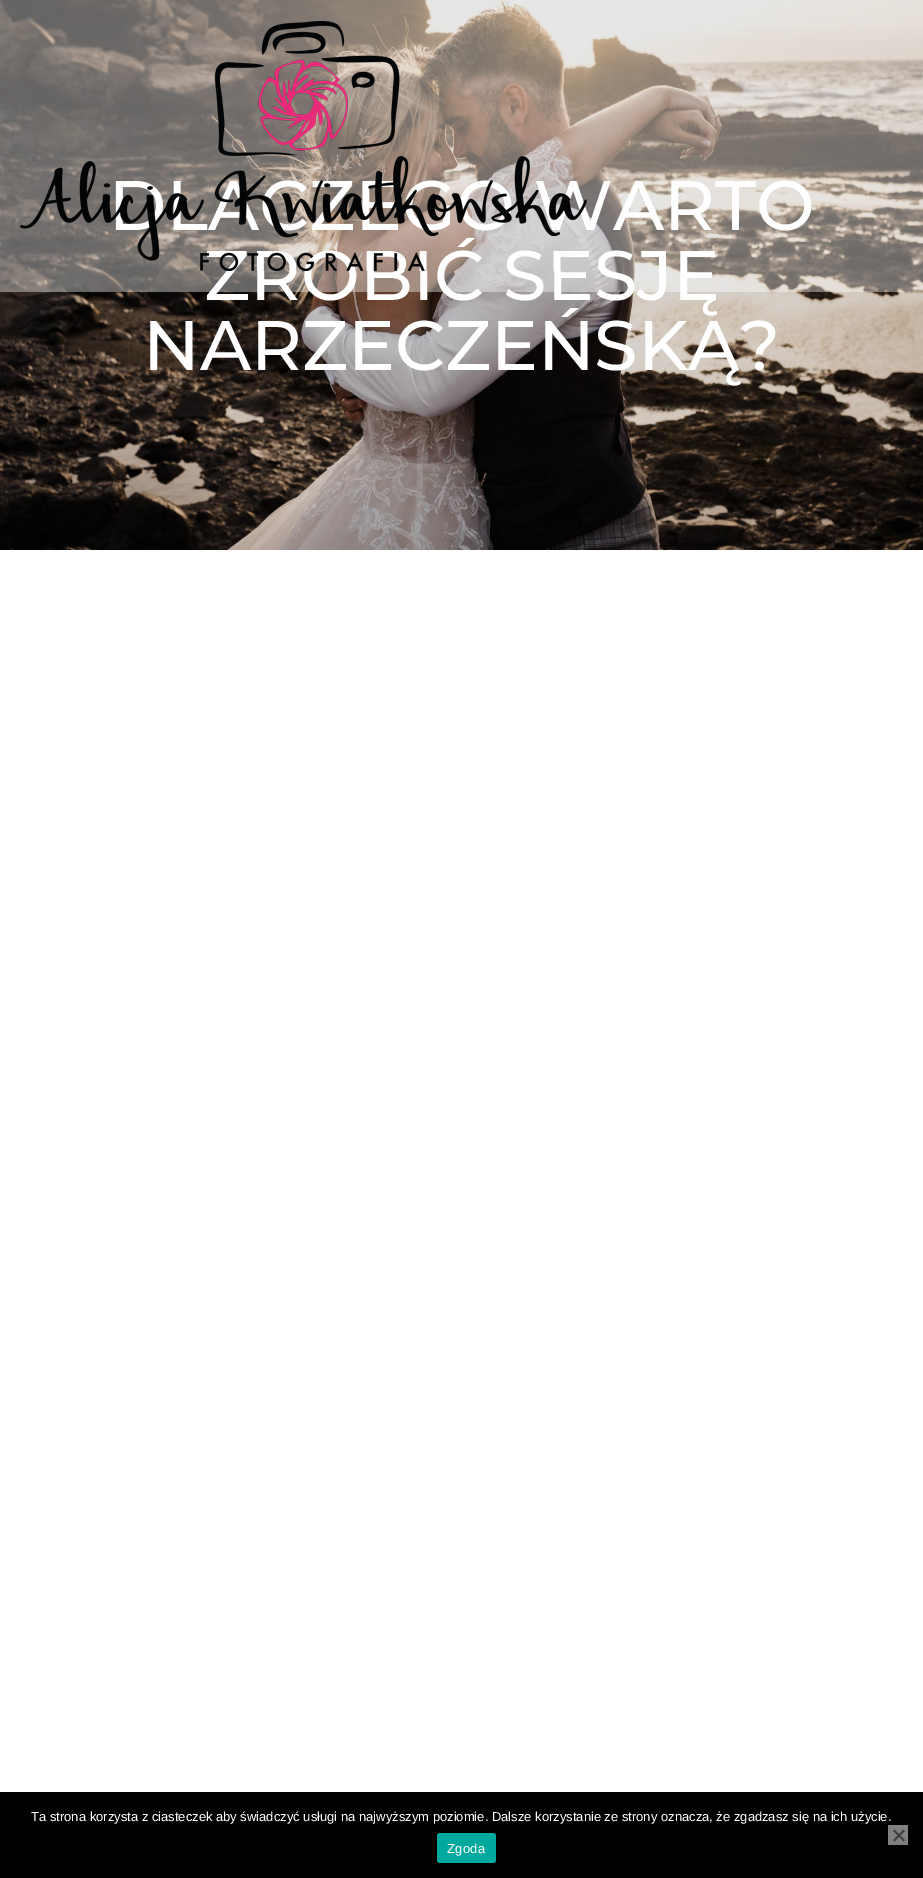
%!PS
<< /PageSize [923 1878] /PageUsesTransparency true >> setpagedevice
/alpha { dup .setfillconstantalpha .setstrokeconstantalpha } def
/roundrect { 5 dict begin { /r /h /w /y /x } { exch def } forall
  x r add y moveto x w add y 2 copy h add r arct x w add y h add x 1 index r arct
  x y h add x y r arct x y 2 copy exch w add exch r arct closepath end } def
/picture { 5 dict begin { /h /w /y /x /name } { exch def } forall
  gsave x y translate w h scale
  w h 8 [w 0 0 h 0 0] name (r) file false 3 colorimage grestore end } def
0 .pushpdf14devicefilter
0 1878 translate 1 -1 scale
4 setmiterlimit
1 setgray
0 0 923 1878 rectfill
(img2.rgb) 0 0 923 550 picture
/Montserrat-Medium [70 0 0 -70 0 0] selectfont
109 230 moveto (DLACZEGO WARTO) show
204 300 moveto (ZROBIĆ SESJĘ) show
0.39 alpha
0 0 923 292 rectfill
1 alpha
(img1.rgb) 20 21 567 250 picture
143 370 moveto (NARZECZEŃSKĄ?) show
0 setgray
0 1792 923 86 rectfill
/LiberationSans-Regular [13 0 0 -13 0 0] selectfont
1 setgray
31 1821 moveto (Ta strona korzysta z ciasteczek aby świadczyć usługi na najwyższym poziomie. Dalsze korzystanie ze strony oznacza, że zgadzasz się na ich użycie.) show
0.502 setgray
888 1825 20 20 rectfill
0.251 setgray
newpath 903.5 1829.5 moveto 905 1831 lineto 894.5 1841.5 lineto 893 1840 lineto closepath fill
newpath 893 1831 moveto 894.5 1829.5 lineto 905 1840 lineto 903.5 1841.5 lineto closepath fill
0 0.663 0.616 setrgbcolor
437 1833 59 30 3 roundrect fill
1 setgray
447 1853 moveto 0.25 0 (Zgoda) ashow
.poppdf14devicefilter showpage
